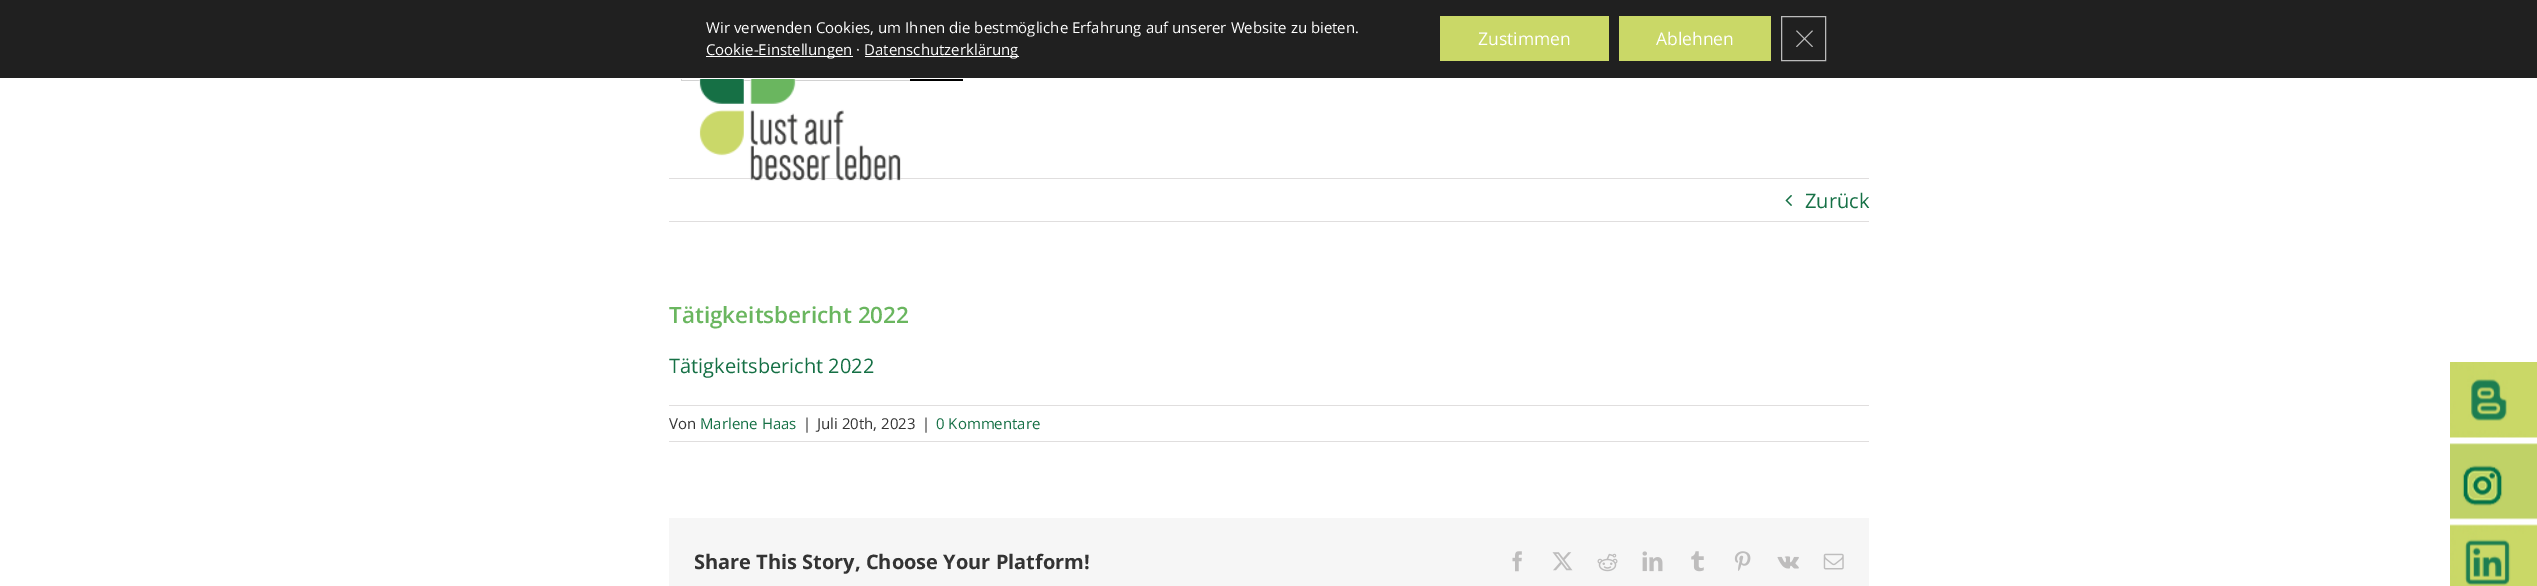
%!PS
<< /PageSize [2537 586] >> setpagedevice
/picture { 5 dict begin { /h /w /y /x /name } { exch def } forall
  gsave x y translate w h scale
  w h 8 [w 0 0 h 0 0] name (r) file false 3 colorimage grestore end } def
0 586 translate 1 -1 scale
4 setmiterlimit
1 setgray
0 0 2537 586 rectfill
0.125 setgray
0 0 2537 78 rectfill
/OpenSans-Regular [15 0 0 -15 0 0] selectfont
1 setgray
706 33 moveto (Wir verwenden Cookies, um Ihnen die bestmögliche Erfahrung auf unserer Website zu bieten.) show
706 56 147 1 rectfill
706 55 moveto (Cookie-Einstellungen ·) show
865 56 154 1 rectfill
864 55 moveto (Datenschutzerklärung) show
0.792 0.847 0.404 setrgbcolor
1440 16 169 45 rectfill
/OpenSans-Regular [17.5 0 0 -17.5 0 0] selectfont
1 setgray
1478 45 moveto (Zustimmen) show
0.792 0.847 0.404 setrgbcolor
1619 16 152 45 rectfill
1 setgray
1656 45 moveto (Ablehnen) show
0.737 setgray
1781.5 16.5 44 44 rectstroke
newpath 1812 30.5 moveto 1813 31 lineto 1797 47 lineto 1796 46.5 lineto closepath fill
newpath 1796 31 moveto 1797 30.5 lineto 1813 46.5 lineto 1812 47 lineto closepath fill
(img1.rgb) 2450 362 87 76 picture
(img2.rgb) 2450 443 87 77 picture
(img3.rgb) 2450 524 87 62 picture
0.824 setgray
681 80 229 1 rectfill
681 79 1 2 rectfill
0 setgray
910 79 53 2 rectfill
0.878 0.871 0.871 setrgbcolor
669 178 1200 1 rectfill
(img4.rgb) 698 79 203 102 picture
669 221 1200 1 rectfill
(img5.rgb) 1785 195 7 11 picture
/OpenSans-Regular [20 0 0 -20 0 0] selectfont
0.082 0.439 0.271 setrgbcolor
1805 208 moveto (Zurück) show
/OpenSans-SemiBold [22.5 0 0 -22.5 0 0] selectfont
0.416 0.714 0.373 setrgbcolor
669 323 moveto (Tätigkeitsbericht 2022) show
/OpenSans-Regular [20 0 0 -20 0 0] selectfont
0.082 0.439 0.271 setrgbcolor
669 373 moveto (Tätigkeitsbericht 2022) show
0.878 0.871 0.871 setrgbcolor
669 405 1200 1 rectfill
669 441 1200 1 rectfill
/OpenSans-Regular [15 0 0 -15 0 0] selectfont
0.2 setgray
669 429 moveto (Von) show
0.082 0.439 0.271 setrgbcolor
700 429 moveto (Marlene Haas) show
0.2 setgray
803 429 moveto (|) show
817 429 moveto (Juli 20th, 2023) show
922 429 moveto (|) show
0.082 0.439 0.271 setrgbcolor
936 429 moveto (0 Kommentare) show
0.965 setgray
669 518 1200 68 rectfill
/OpenSans-Bold [20 0 0 -20 0 0] selectfont
0.2 setgray
694 569 moveto (Share This Story, Choose Your Platform!) show
(img6.rgb) 1512 551 10 21 picture
(img7.rgb) 1552 552 21 19 picture
(img8.rgb) 1597 553 21 19 picture
(img9.rgb) 1642 551 21 21 picture
(img10.rgb) 1691 551 13 21 picture
(img11.rgb) 1734 551 17 20 picture
(img12.rgb) 1777 556 22 13 picture
(img13.rgb) 1823 553 21 17 picture
showpage
